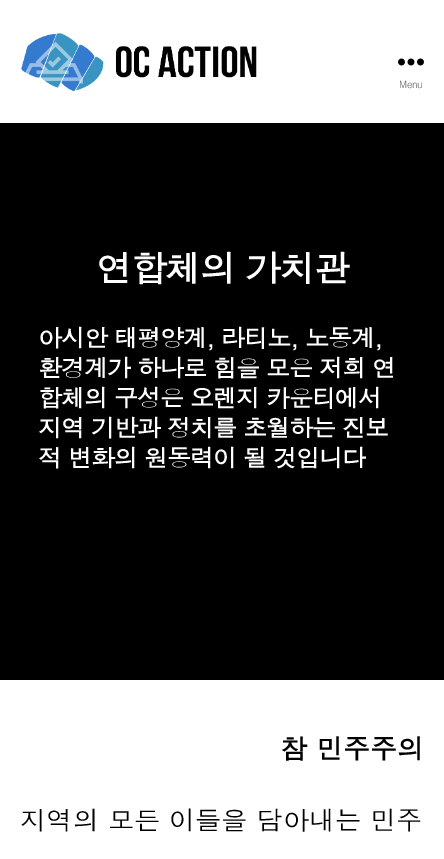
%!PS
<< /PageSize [444 859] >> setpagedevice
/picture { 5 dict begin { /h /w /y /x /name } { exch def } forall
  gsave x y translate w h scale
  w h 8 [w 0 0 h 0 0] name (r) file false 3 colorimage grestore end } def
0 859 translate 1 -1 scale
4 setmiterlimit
1 setgray
0 0 444 859 rectfill
(img1.rgb) 21 33 236 58 picture
(img2.rgb) 398 58 26 8 picture
/Dotum-Regular [10 0 0 -10 0 0] selectfont
0.427 setgray
399 88 moveto -0.5 0 (Menu) ashow
0 setgray
0 123 444 557 rectfill
/Dotum-Bold [36 0 0 -36 0 0] selectfont
1 setgray
96 282 moveto -1.5 0 (연합체의 가치관) ashow
/Dotum-Bold [24 0 0 -24 0 0] selectfont
38 347 moveto -1 0 (아시안 태평양계, 라티노, 노동계,) ashow
38 377 moveto -1 0 (환경계가 하나로 힘을 모은 저희 연) ashow
38 407 moveto -1 0 (합체의 구성은 오렌지 카운티에서) ashow
38 437 moveto -1 0 (지역 기반과 정치를 초월하는 진보) ashow
38 467 moveto -1 0 (적 변화의 원동력이 될 것입니다) ashow
/Dotum-Bold [27 0 0 -27 0 0] selectfont
0 setgray
280 759 moveto (참 민주주의) show
/Dotum-Regular [26.25 0 0 -26.25 0 0] selectfont
20 830 moveto (지역의 모든 이들을 담아내는 민주) show
showpage
